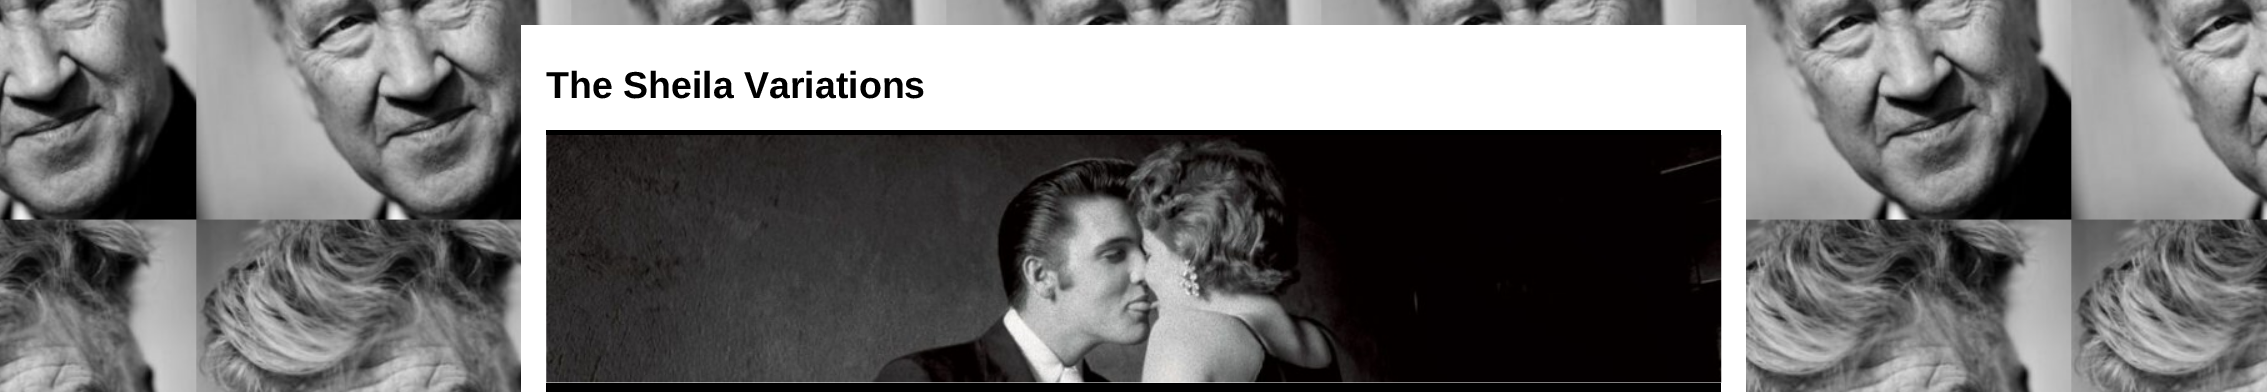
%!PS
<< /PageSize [2267 392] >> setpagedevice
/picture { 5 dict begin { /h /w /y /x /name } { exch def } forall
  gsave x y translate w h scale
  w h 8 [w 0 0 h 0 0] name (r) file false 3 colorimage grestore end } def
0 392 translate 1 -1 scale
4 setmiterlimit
1 setgray
0 0 2267 392 rectfill
(img1.rgb) 0 0 2267 392 picture
521 25 1225 367 rectfill
/LiberationSans-Bold [37.5 0 0 -37.5 0 0] selectfont
0 setgray
546 98 moveto (The Sheila Variations) show
546 130 1175 5 rectfill
546 383 1175 9 rectfill
(img2.rgb) 546 135 1176 248 picture
showpage
